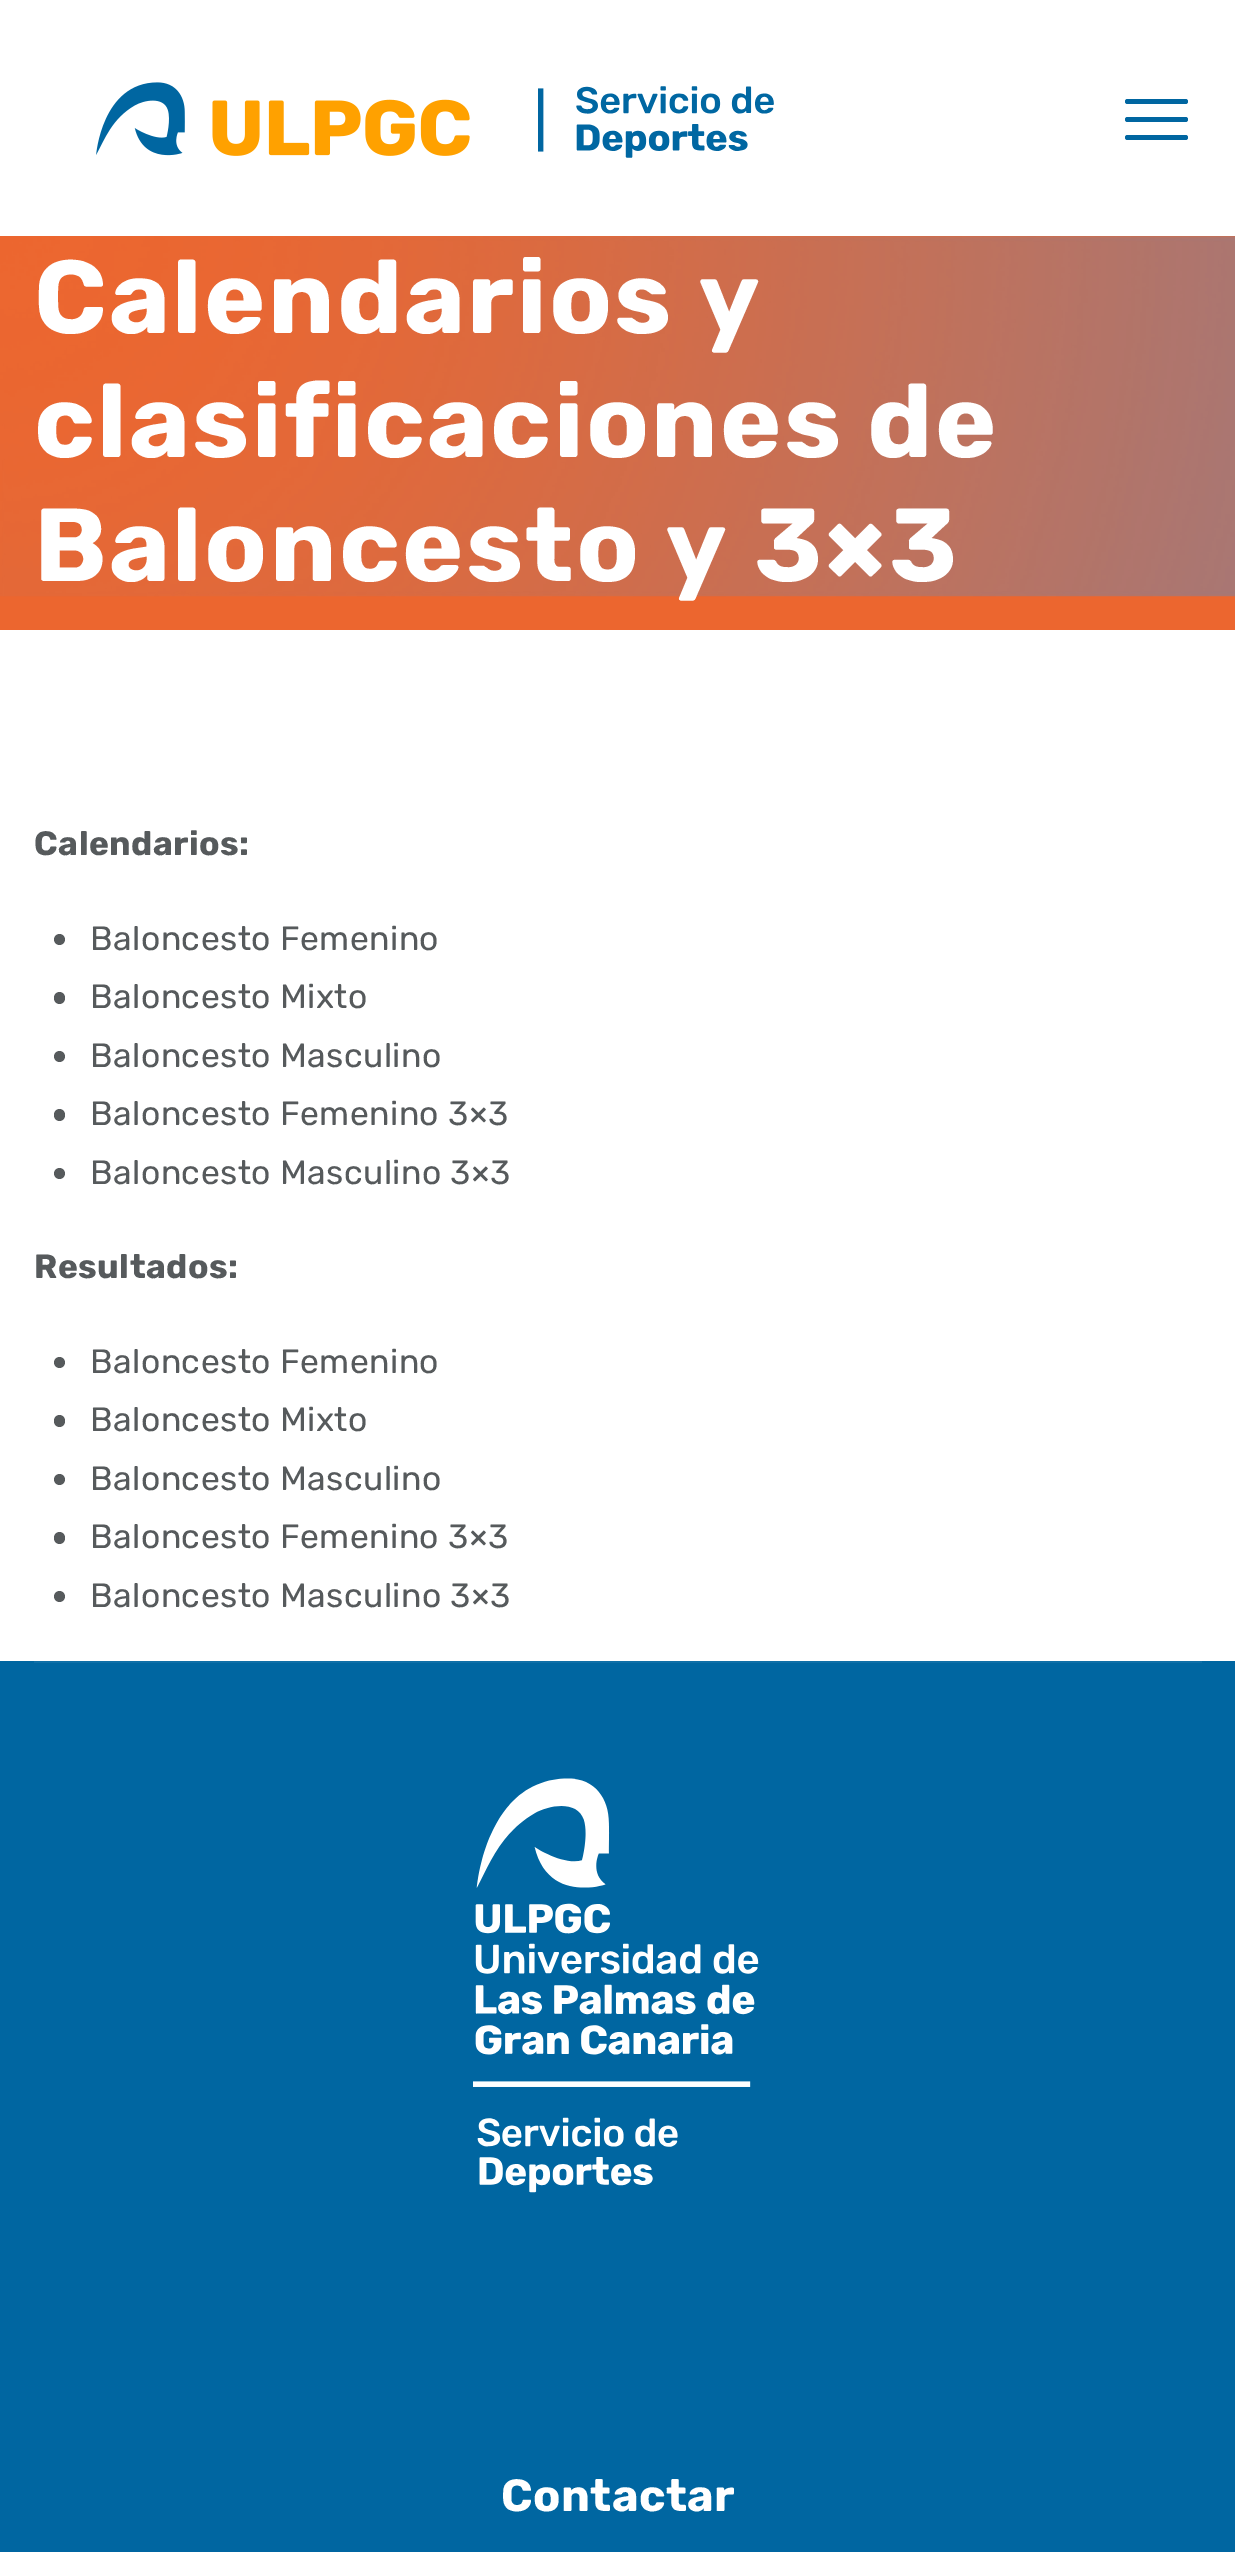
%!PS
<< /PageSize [1235 2552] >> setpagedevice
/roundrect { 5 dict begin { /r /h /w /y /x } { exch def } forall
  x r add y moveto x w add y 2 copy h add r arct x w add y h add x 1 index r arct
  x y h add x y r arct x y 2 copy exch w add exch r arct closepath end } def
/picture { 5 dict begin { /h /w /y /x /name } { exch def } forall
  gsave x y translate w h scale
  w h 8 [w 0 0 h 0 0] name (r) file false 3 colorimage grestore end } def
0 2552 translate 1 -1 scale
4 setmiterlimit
1 setgray
0 0 1235 2552 rectfill
(img1.rgb) 96 82 374 74 picture
(img2.rgb) 538 86 236 72 picture
0 0.4 0.631 setrgbcolor
1125 117 63 5 2.5 roundrect fill
1125 99 63 5 2.5 roundrect fill
1125 135 63 5 2.5 roundrect fill
0.925 0.4 0.184 setrgbcolor
0 236 1235 394 rectfill
(img3.rgb) 0 236 1235 361 picture
/Rubik-Bold [103.5 0 0 -103.5 0 0] selectfont
1 setgray
34 333 moveto 2.25 0 (Calendarios y) ashow
34 457 moveto 2.25 0 (clasificaciones de) ashow
34 581 moveto 2.25 0 (Baloncesto y 3×3) ashow
/Rubik-Bold [33.75 0 0 -33.75 0 0] selectfont
0.337 0.353 0.361 setrgbcolor
34 855 moveto 0.45 0 (Calendarios:) ashow
newpath 59.5 939.5 5.5 0 360 arc closepath fill
/Rubik-Regular [33.75 0 0 -33.75 0 0] selectfont
90 950 moveto 0.45 0 (Baloncesto Femenino) ashow
54 992 11 12 5.5 roundrect fill
90 1008 moveto 0.45 0 (Baloncesto Mixto) ashow
newpath 59.5 1056.5 5.5 0 360 arc closepath fill
90 1067 moveto 0.45 0 (Baloncesto Masculino) ashow
54 1109 11 12 5.5 roundrect fill
90 1125 moveto 0.45 0 (Baloncesto Femenino 3×3) ashow
newpath 59.5 1173.5 5.5 0 360 arc closepath fill
90 1184 moveto 0.45 0 (Baloncesto Masculino 3×3) ashow
/Rubik-Bold [33.75 0 0 -33.75 0 0] selectfont
34 1278 moveto 0.45 0 (Resultados:) ashow
newpath 59.5 1362.5 5.5 0 360 arc closepath fill
/Rubik-Regular [33.75 0 0 -33.75 0 0] selectfont
90 1373 moveto 0.45 0 (Baloncesto Femenino) ashow
54 1415 11 12 5.5 roundrect fill
90 1431 moveto 0.45 0 (Baloncesto Mixto) ashow
newpath 59.5 1479.5 5.5 0 360 arc closepath fill
90 1490 moveto 0.45 0 (Baloncesto Masculino) ashow
54 1532 11 12 5.5 roundrect fill
90 1548 moveto 0.45 0 (Baloncesto Femenino 3×3) ashow
newpath 59.5 1596.5 5.5 0 360 arc closepath fill
90 1607 moveto 0.45 0 (Baloncesto Masculino 3×3) ashow
0 0.4 0.631 setrgbcolor
0 1661 1235 891 rectfill
0.059 0.435 0.655 setrgbcolor
34 1661 1168 2 rectfill
(img4.rgb) 473 1778 286 415 picture
/Rubik-Bold [45 0 0 -45 0 0] selectfont
1 setgray
501 2511 moveto 0.45 0 (Contactar) ashow
showpage
